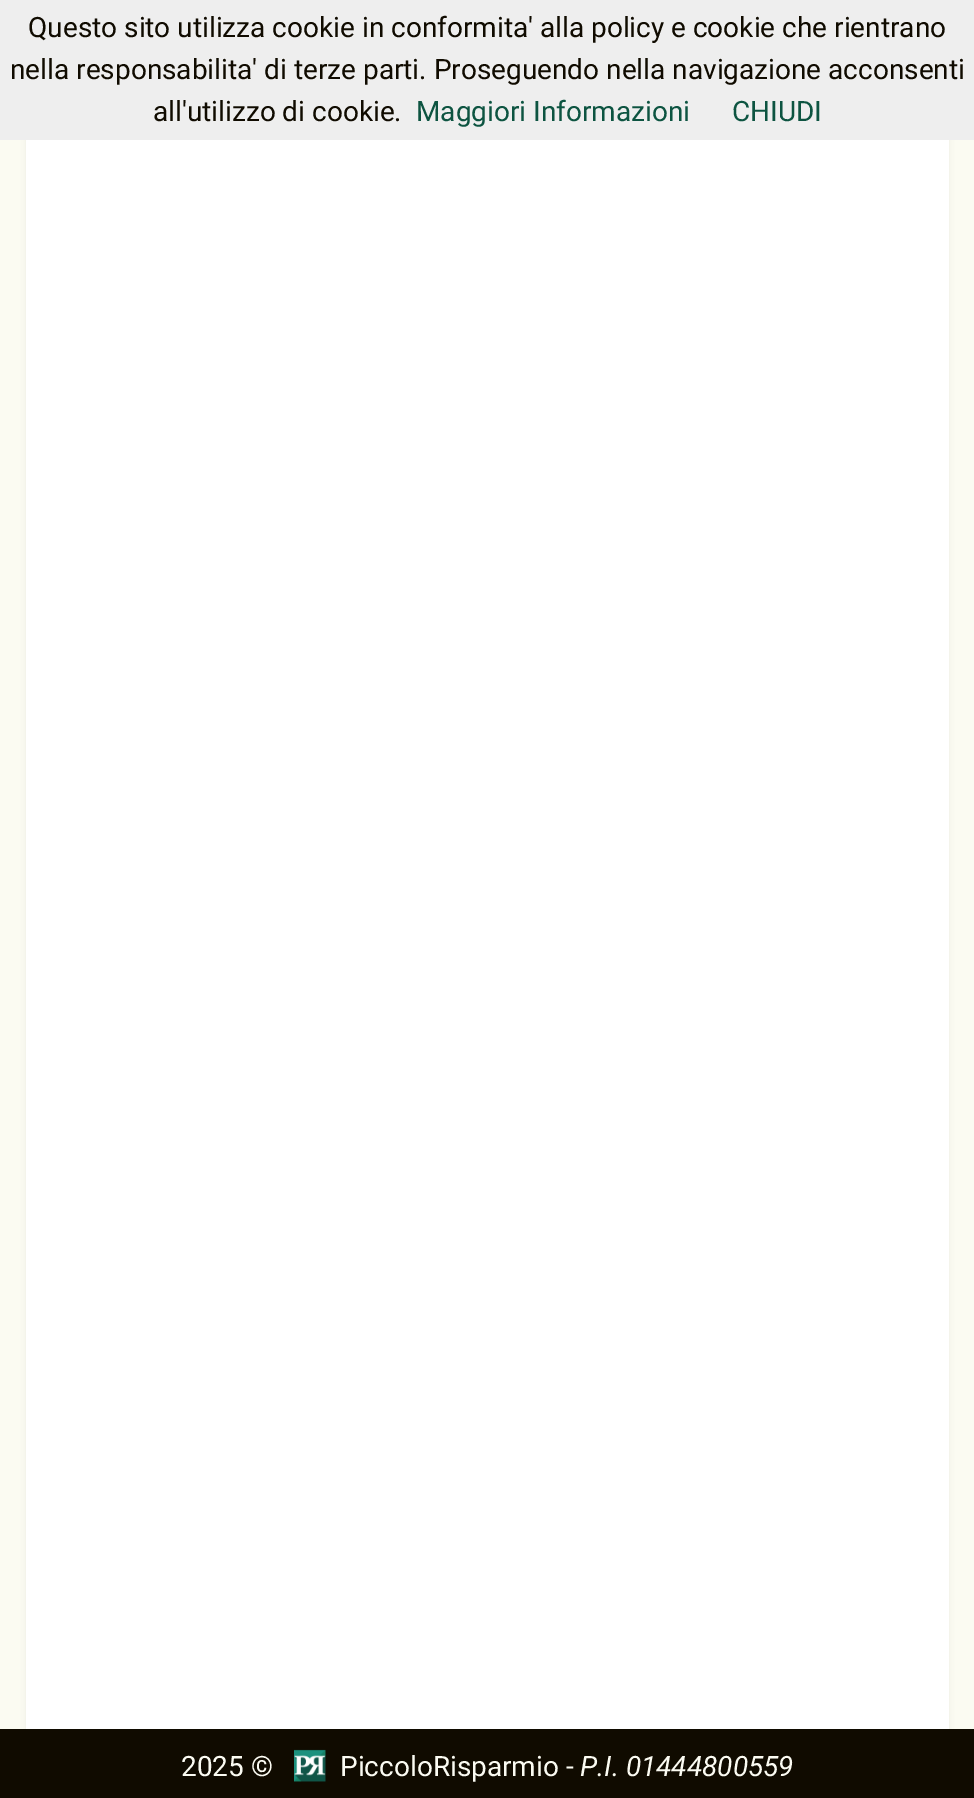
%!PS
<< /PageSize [974 1798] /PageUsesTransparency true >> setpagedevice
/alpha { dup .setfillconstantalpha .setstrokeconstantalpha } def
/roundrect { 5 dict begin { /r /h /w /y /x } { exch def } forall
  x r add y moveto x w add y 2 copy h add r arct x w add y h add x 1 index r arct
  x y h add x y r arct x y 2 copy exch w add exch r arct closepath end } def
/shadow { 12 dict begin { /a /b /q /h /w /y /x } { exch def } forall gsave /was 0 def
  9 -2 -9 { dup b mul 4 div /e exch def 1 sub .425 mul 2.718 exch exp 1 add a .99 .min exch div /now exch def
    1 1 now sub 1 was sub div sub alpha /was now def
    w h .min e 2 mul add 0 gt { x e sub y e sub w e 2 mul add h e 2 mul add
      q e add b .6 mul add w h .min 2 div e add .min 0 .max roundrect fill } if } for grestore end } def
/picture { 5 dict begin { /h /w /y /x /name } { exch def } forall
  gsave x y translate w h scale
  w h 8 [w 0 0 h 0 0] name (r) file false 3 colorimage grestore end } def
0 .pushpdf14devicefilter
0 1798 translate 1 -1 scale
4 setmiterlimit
0.984 0.984 0.949 setrgbcolor
0 0 974 1798 rectfill
0.063 0.043 0 setrgbcolor
26 -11 923 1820 0 3.5 0.05 shadow
1 setgray
26 140 923 1589 rectfill
0.933 setgray
0 0 974 140 rectfill
/Roboto-Regular [28 0 0 -28 0 0] selectfont
0.063 0.043 0 setrgbcolor
28 37 moveto (Questo sito utilizza cookie in conformita' alla policy e cookie che rientrano) show
10 79 moveto (nella responsabilita' di terze parti. Proseguendo nella navigazione acconsenti) show
153 121 moveto (all'utilizzo di cookie.) show
0.051 0.329 0.255 setrgbcolor
416 121 moveto (Maggiori Informazioni) show
732 121 moveto (CHIUDI) show
0.063 0.043 0 setrgbcolor
0 1729 974 69 rectfill
0.984 0.984 0.949 setrgbcolor
181 1776 moveto (2025 ©) show
(img1.rgb) 294 1749 32 33 picture
340 1776 moveto (PiccoloRisparmio -) show
/Roboto-Italic [28 0 0 -28 0 0] selectfont
580 1776 moveto (P.I. 01444800559) show
.poppdf14devicefilter showpage
